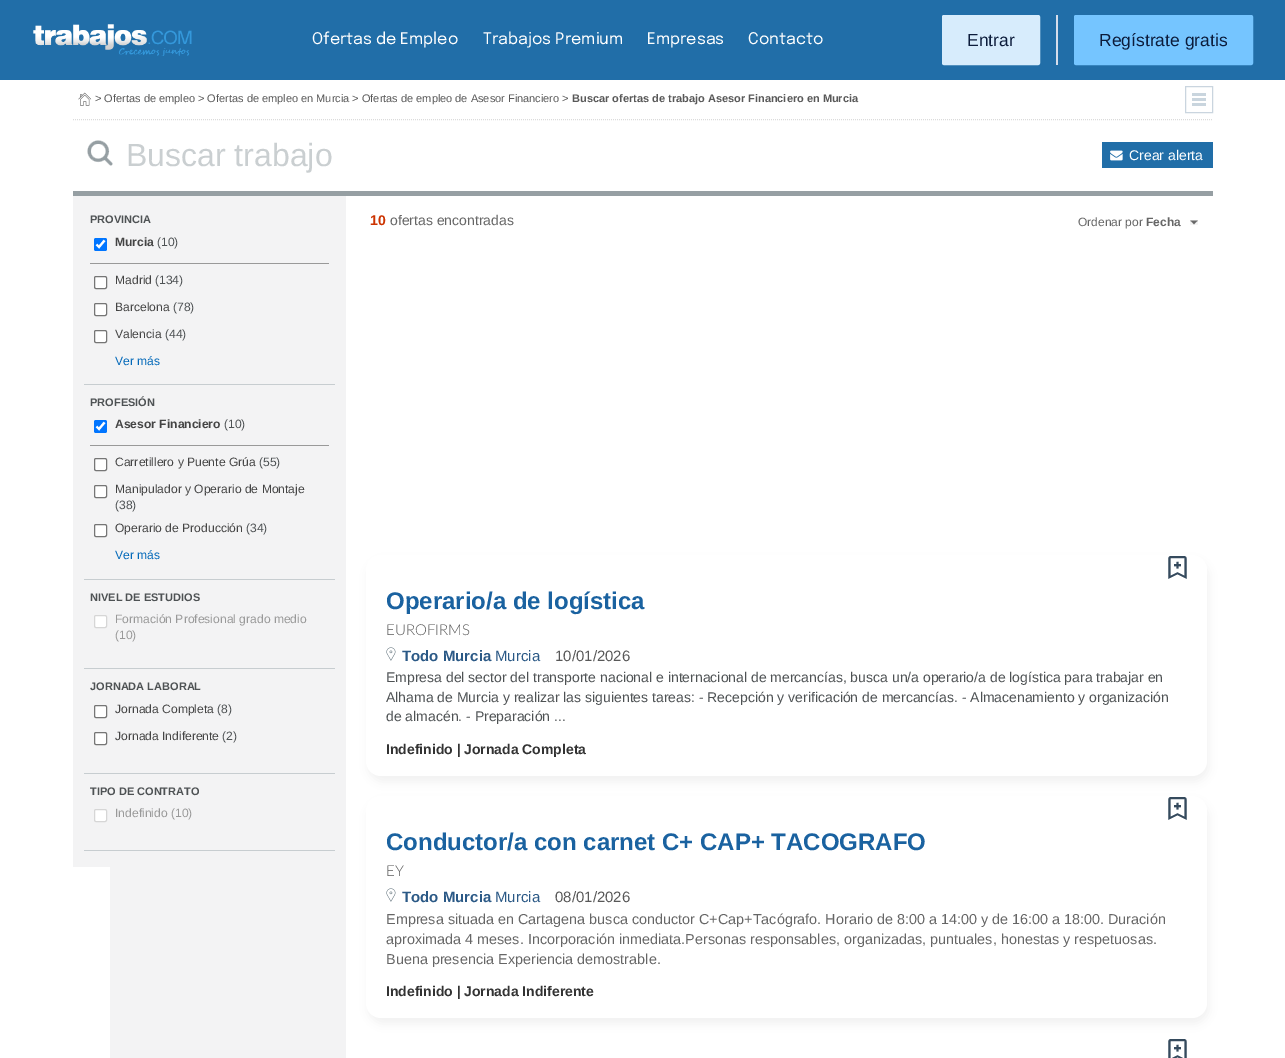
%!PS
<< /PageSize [1285 1058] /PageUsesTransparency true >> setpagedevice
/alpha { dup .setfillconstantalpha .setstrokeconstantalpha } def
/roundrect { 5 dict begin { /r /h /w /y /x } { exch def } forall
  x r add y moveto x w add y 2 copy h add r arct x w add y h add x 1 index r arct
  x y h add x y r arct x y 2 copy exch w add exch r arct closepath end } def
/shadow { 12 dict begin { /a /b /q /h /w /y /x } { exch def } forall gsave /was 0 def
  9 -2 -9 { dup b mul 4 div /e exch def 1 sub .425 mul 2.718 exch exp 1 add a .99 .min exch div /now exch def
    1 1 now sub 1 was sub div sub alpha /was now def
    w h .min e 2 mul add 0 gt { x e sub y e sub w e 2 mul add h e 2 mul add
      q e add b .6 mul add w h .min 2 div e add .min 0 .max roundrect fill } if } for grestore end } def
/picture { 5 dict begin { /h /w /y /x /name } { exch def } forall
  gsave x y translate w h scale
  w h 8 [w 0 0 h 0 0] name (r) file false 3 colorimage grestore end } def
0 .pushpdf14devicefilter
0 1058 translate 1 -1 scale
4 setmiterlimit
1 setgray
0 0 1285 1058 rectfill
0.129 0.431 0.659 setrgbcolor
0 0 1285 80 rectfill
(img1.rgb) 33 24 159 32 picture
/Epilogue-Regular [16 0 0 -16 0 0] selectfont
1 setgray
312 44 moveto (Ofertas de Empleo) show
483 44 moveto (Trabajos Premium) show
647 44 moveto (Empresas) show
748 44 moveto (Contacto) show
0.843 0.925 0.988 setrgbcolor
942.5 15.5 97 49 1.5 roundrect gsave fill grestore
stroke
/LiberationSans-Regular [17.5 0 0 -17.5 0 0] selectfont
0.047 0.11 0.231 setrgbcolor
967 46 moveto (Entrar) show
0.839 0.867 0.922 setrgbcolor
1056 15 2 50 rectfill
0.459 0.773 1 setrgbcolor
1074.5 15.5 178 49 1.5 roundrect gsave fill grestore
stroke
0.047 0.11 0.231 setrgbcolor
1099 46 moveto (Regístrate gratis) show
0.859 setgray
[1 1] 0 setdash
newpath 73 119.5 moveto 1213 119.5 lineto stroke
(img2.rgb) 78 92 14 14 picture
/LiberationSans-Regular [11 0 0 -11 0 0] selectfont
0.345 setgray
95 102 moveto (> Ofertas de empleo > Ofertas de empleo en Murcia > Ofertas de empleo de Asesor Financiero >) show
/LiberationSans-Bold [11 0 0 -11 0 0] selectfont
572 102 moveto (Buscar ofertas de trabajo Asesor Financiero en Murcia) show
0.792 0.835 0.875 setrgbcolor
[] 0 setdash
1185.5 86.5 27 26 rectstroke
(img3.rgb) 1192 93 14 13 picture
0.588 0.624 0.639 setrgbcolor
73 191 1140 5 rectfill
(img4.rgb) 87 140 26 26 picture
/LiberationSans-Regular [32 0 0 -32 0 0] selectfont
0.792 0.812 0.82 setrgbcolor
126 166 moveto (Buscar trabajo) show
0.129 0.431 0.659 setrgbcolor
1102 142 111 26 rectfill
(img5.rgb) 1110 150 13 11 picture
/LiberationSans-Regular [14 0 0 -14 0 0] selectfont
1 setgray
1129 160 moveto (Crear alerta) show
0.953 0.953 0.957 setrgbcolor
73 196 273 671 rectfill
0.78 0.804 0.816 setrgbcolor
84 384 251 1 rectfill
/LiberationSans-Bold [11 0 0 -11 0 0] selectfont
0.306 0.322 0.329 setrgbcolor
90 223 moveto (PROVINCIA) show
0.6 setgray
90 263 239 1 rectfill
0 0.459 1 setrgbcolor
94 238 13 13 2 roundrect fill
1 setgray
2.1 setlinewidth
newpath 96.5 244.5 moveto 99 247 lineto 104.5 240.5 lineto stroke
/LiberationSans-Bold [12.1 0 0 -12.1 0 0] selectfont
0.267 setgray
115 246 moveto (Murcia) show
/LiberationSans-Regular [12.1 0 0 -12.1 0 0] selectfont
0.306 0.322 0.329 setrgbcolor
157 246 moveto (\(10\)) show
1 setgray
94.5 276.5 12 12 1.5 roundrect gsave fill grestore
0.463 setgray
1 setlinewidth
stroke
0.267 setgray
115 284 moveto (Madrid) show
0.306 0.322 0.329 setrgbcolor
155 284 moveto (\(134\)) show
1 setgray
94.5 303.5 12 12 1.5 roundrect gsave fill grestore
0.463 setgray
stroke
0.267 setgray
115 311 moveto (Barcelona) show
0.306 0.322 0.329 setrgbcolor
173 311 moveto (\(78\)) show
1 setgray
94.5 330.5 12 12 1.5 roundrect gsave fill grestore
0.463 setgray
stroke
0.267 setgray
115 338 moveto (Valencia) show
0.306 0.322 0.329 setrgbcolor
165 338 moveto (\(44\)) show
0.012 0.412 0.725 setrgbcolor
115 365 moveto (Ver más) show
0.78 0.804 0.816 setrgbcolor
84 579 251 1 rectfill
/LiberationSans-Bold [11 0 0 -11 0 0] selectfont
0.306 0.322 0.329 setrgbcolor
90 406 moveto (PROFESIÓN) show
0.6 setgray
90 445 239 1 rectfill
0 0.459 1 setrgbcolor
94 420 13 13 2 roundrect fill
1 setgray
2.1 setlinewidth
newpath 96.5 426.5 moveto 99 429 lineto 104.5 422.5 lineto stroke
/LiberationSans-Bold [12.1 0 0 -12.1 0 0] selectfont
0.267 setgray
115 428 moveto (Asesor Financiero) show
/LiberationSans-Regular [12.1 0 0 -12.1 0 0] selectfont
0.306 0.322 0.329 setrgbcolor
224 428 moveto (\(10\)) show
1 setgray
94.5 458.5 12 12 1.5 roundrect gsave fill grestore
0.463 setgray
1 setlinewidth
stroke
0.267 setgray
115 466 moveto (Carretillero y Puente Grúa) show
0.306 0.322 0.329 setrgbcolor
259 466 moveto (\(55\)) show
1 setgray
94.5 485.5 12 12 1.5 roundrect gsave fill grestore
0.463 setgray
stroke
0.267 setgray
115 493 moveto (Manipulador y Operario de Montaje) show
0.306 0.322 0.329 setrgbcolor
115 509 moveto (\(38\)) show
1 setgray
94.5 524.5 12 12 1.5 roundrect gsave fill grestore
0.463 setgray
stroke
0.267 setgray
115 532 moveto (Operario de Producción) show
0.306 0.322 0.329 setrgbcolor
246 532 moveto (\(34\)) show
0.012 0.412 0.725 setrgbcolor
115 559 moveto (Ver más) show
0.78 0.804 0.816 setrgbcolor
84 668 251 1 rectfill
/LiberationSans-Bold [11 0 0 -11 0 0] selectfont
0.306 0.322 0.329 setrgbcolor
90 601 moveto (NIVEL DE ESTUDIOS) show
1 setgray
94.5 615.5 12 12 1.5 roundrect gsave fill grestore
0.839 setgray
stroke
/LiberationSans-Regular [12.1 0 0 -12.1 0 0] selectfont
0.6 setgray
115 623 moveto (Formación Profesional grado medio) show
115 639 moveto (\(10\)) show
0.78 0.804 0.816 setrgbcolor
84 773 251 1 rectfill
/LiberationSans-Bold [11 0 0 -11 0 0] selectfont
0.306 0.322 0.329 setrgbcolor
90 690 moveto (JORNADA LABORAL) show
1 setgray
94.5 705.5 12 12 1.5 roundrect gsave fill grestore
0.463 setgray
stroke
/LiberationSans-Regular [12.1 0 0 -12.1 0 0] selectfont
0.267 setgray
115 713 moveto (Jornada Completa) show
0.306 0.322 0.329 setrgbcolor
217 713 moveto (\(8\)) show
1 setgray
94.5 732.5 12 12 1.5 roundrect gsave fill grestore
0.463 setgray
stroke
0.267 setgray
115 740 moveto (Jornada Indiferente) show
0.306 0.322 0.329 setrgbcolor
222 740 moveto (\(2\)) show
0.78 0.804 0.816 setrgbcolor
84 850 251 1 rectfill
/LiberationSans-Bold [11 0 0 -11 0 0] selectfont
0.306 0.322 0.329 setrgbcolor
90 795 moveto (TIPO DE CONTRATO) show
1 setgray
94.5 809.5 12 12 1.5 roundrect gsave fill grestore
0.839 setgray
stroke
/LiberationSans-Regular [12.1 0 0 -12.1 0 0] selectfont
0.6 setgray
115 817 moveto (Indefinido \(10\)) show
/LiberationSans-Bold [14 0 0 -14 0 0] selectfont
0.8 0.2 0 setrgbcolor
370 225 moveto (10) show
/LiberationSans-Regular [14 0 0 -14 0 0] selectfont
0.4 setgray
390 225 moveto (ofertas encontradas) show
(img6.rgb) 1190 220 8 5 picture
/LiberationSans-Regular [12 0 0 -12 0 0] selectfont
1078 226 moveto (Ordenar por) show
/LiberationSans-Bold [12 0 0 -12 0 0] selectfont
1146 226 moveto (Fecha) show
0.953 0.953 0.957 setrgbcolor
110 867 236 191 rectfill
0 setgray
368 561 841 221 15 5 0.05 shadow
1 setgray
366 555 841 221 15 roundrect fill
(img7.rgb) 1168 556 19 23 picture
/LiberationSans-Bold [24 0 0 -24 0 0] selectfont
0.102 0.384 0.627 setrgbcolor
386 609 moveto (Operario/a de logística) show
/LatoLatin-Light [15 0 0 -15 0 0] selectfont
0.345 setgray
386 635 moveto (EUROFIRMS) show
(img8.rgb) 386 647 10 14 picture
/LiberationSans-Bold [15 0 0 -15 0 0] selectfont
0.169 0.349 0.525 setrgbcolor
402 661 moveto (Todo Murcia) show
/LiberationSans-Regular [15 0 0 -15 0 0] selectfont
495 661 moveto (Murcia) show
0.345 setgray
555 661 moveto (10/01/2026) show
/LiberationSans-Regular [14 0 0 -14 0 0] selectfont
0.306 0.322 0.329 setrgbcolor
386 682 moveto (Empresa del sector del transporte nacional e internacional de mercancías, busca un/a operario/a de logística para trabajar en) show
386 702 moveto (Alhama de Murcia y realizar las siguientes tareas: - Recepción y verificación de mercancías. - Almacenamiento y organización) show
386 721 moveto (de almacén. - Preparación ...) show
/LiberationSans-Bold [14 0 0 -14 0 0] selectfont
0.2 setgray
386 754 moveto (Indefinido |) show
464 754 moveto (Jornada Completa) show
0 setgray
368 802 841 222 15 5 0.05 shadow
1 setgray
366 796 841 222 15 roundrect fill
(img7.rgb) 1168 797 19 23 picture
/LiberationSans-Bold [24 0 0 -24 0 0] selectfont
0.102 0.384 0.627 setrgbcolor
386 850 moveto (Conductor/a con carnet C+ CAP+ TACOGRAFO) show
/LatoLatin-Light [15 0 0 -15 0 0] selectfont
0.345 setgray
386 876 moveto (EY) show
(img8.rgb) 386 888 10 14 picture
/LiberationSans-Bold [15 0 0 -15 0 0] selectfont
0.169 0.349 0.525 setrgbcolor
402 902 moveto (Todo Murcia) show
/LiberationSans-Regular [15 0 0 -15 0 0] selectfont
495 902 moveto (Murcia) show
0.345 setgray
555 902 moveto (08/01/2026) show
/LiberationSans-Regular [14.4 0 0 -14.4 0 0] selectfont
0.4 setgray
386 924 moveto (Empresa situada en Cartagena busca conductor C+Cap+Tacógrafo. Horario de 8:00 a 14:00 y de 16:00 a 18:00. Duración) show
386 944 moveto (aproximada 4 meses. Incorporación inmediata.Personas responsables, organizadas, puntuales, honestas y respetuosas.) show
386 964 moveto (Buena presencia Experiencia demostrable.) show
/LiberationSans-Bold [14 0 0 -14 0 0] selectfont
0.2 setgray
386 996 moveto (Indefinido |) show
464 996 moveto (Jornada Indiferente) show
(img9.rgb) 1168 1039 19 19 picture
.poppdf14devicefilter showpage
